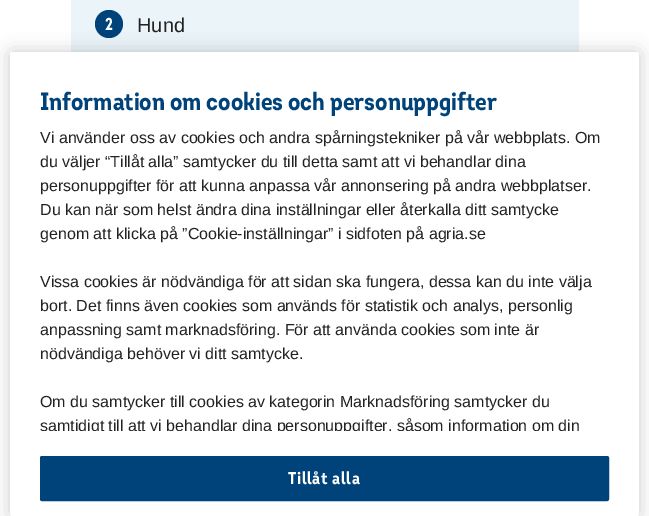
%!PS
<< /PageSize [649 516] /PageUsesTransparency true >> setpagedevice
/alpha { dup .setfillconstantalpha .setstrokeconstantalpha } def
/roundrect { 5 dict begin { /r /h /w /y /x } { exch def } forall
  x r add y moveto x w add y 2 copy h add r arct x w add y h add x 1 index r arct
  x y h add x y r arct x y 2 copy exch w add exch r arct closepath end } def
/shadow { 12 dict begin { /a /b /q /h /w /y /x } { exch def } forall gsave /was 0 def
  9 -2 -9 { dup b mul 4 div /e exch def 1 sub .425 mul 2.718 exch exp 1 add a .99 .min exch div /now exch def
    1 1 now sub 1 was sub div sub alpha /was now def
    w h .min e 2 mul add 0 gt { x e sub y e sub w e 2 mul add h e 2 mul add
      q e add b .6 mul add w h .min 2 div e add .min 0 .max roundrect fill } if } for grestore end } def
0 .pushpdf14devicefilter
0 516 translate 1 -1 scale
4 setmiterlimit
1 setgray
0 0 649 516 rectfill
0.922 0.957 0.976 setrgbcolor
71 0 508 52 rectfill
0 0.259 0.478 setrgbcolor
newpath 109 24 14 0 360 arc closepath fill
/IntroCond-Bold [16 0 0 -16 0 0] selectfont
1 setgray
105 30 moveto (2) show
/LiberationSans-Regular [20 0 0 -20 0 0] selectfont
0.133 setgray
137 32 moveto (Hund) show
0 setgray
10 52 629 464 2.5 9 0.2 shadow
1 setgray
10 52 629 464 2.5 roundrect fill
/IntroCond-Bold [23 0 0 -23 0 0] selectfont
0 0.259 0.478 setrgbcolor
40 110 moveto (Information om cookies och personuppgifter) show
/LiberationSans-Regular [16 0 0 -16 0 0] selectfont
0.133 setgray
40 143 moveto (Vi använder oss av cookies och andra spårningstekniker på vår webbplats. Om) show
40 167 moveto (du väljer “Tillåt alla” samtycker du till detta samt att vi behandlar dina) show
40 191 moveto (personuppgifter för att kunna anpassa vår annonsering på andra webbplatser.) show
40 215 moveto (Du kan när som helst ändra dina inställningar eller återkalla ditt samtycke) show
40 239 moveto (genom att klicka på ”Cookie-inställningar” i sidfoten på agria.se) show
40 287 moveto (Vissa cookies är nödvändiga för att sidan ska fungera, dessa kan du inte välja) show
40 311 moveto (bort. Det finns även cookies som används för statistik och analys, personlig) show
40 335 moveto (anpassning samt marknadsföring. För att använda cookies som inte är) show
40 359 moveto (nödvändiga behöver vi ditt samtycke.) show
40 407 moveto (Om du samtycker till cookies av kategorin Marknadsföring samtycker du) show
gsave
40 126 569 305 rectclip
40 431 moveto (samtidigt till att vi behandlar dina personuppgifter, såsom information om din) show
grestore
0 0.259 0.478 setrgbcolor
40.5 456.5 568 44 1.5 roundrect gsave fill grestore
stroke
/IntroCond-Bold [16 0 0 -16 0 0] selectfont
1 setgray
288 484 moveto 0.75 0 (Tillåt alla) ashow
.poppdf14devicefilter showpage
